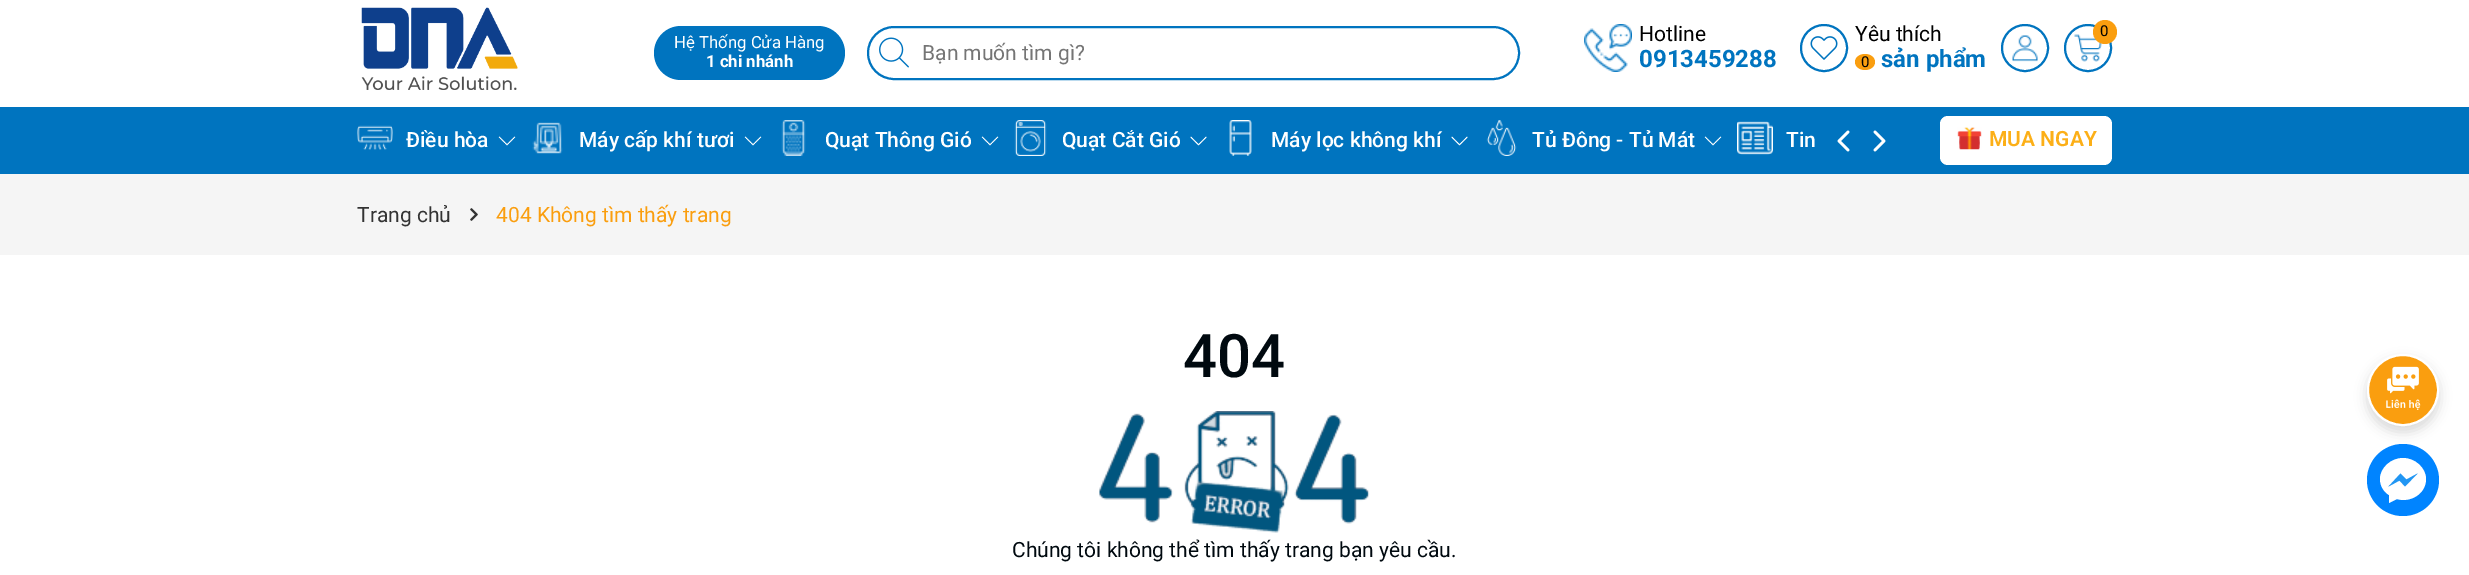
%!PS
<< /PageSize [2469 575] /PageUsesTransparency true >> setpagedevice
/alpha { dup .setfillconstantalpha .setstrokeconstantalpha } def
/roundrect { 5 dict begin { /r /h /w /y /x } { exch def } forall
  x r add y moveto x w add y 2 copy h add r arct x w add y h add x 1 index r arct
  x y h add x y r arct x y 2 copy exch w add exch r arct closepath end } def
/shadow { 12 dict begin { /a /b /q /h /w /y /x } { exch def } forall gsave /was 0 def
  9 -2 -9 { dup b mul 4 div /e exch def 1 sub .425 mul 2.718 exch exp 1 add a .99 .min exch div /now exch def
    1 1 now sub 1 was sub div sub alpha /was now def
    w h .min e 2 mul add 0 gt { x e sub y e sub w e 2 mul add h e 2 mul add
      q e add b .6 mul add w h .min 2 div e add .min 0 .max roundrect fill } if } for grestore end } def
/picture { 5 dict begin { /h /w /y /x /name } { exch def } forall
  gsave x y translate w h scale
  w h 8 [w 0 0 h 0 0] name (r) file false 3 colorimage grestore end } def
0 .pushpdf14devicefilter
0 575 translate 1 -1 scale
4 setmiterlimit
1 setgray
0 0 2469 575 rectfill
(img1.rgb) 361 7 157 83 picture
0 0.455 0.749 setrgbcolor
654 26 191 54 27 roundrect fill
/Roboto-Regular [16.75 0 0 -16.75 0 0] selectfont
1 setgray
674 48 moveto (Hệ Thống Cửa Hàng) show
/Roboto-Bold [16.75 0 0 -16.75 0 0] selectfont
706 67 moveto (1 chi nhánh) show
0 0.455 0.749 setrgbcolor
2 setlinewidth
868 27 651 52 26 roundrect stroke
(img2.rgb) 879 37 30 31 picture
/Roboto-Regular [21 0 0 -21 0 0] selectfont
0.459 setgray
922 60 moveto (Bạn muốn tìm gì?) show
(img3.rgb) 1584 24 48 48 picture
0 setgray
1639 41 moveto (Hotline) show
/Roboto-Bold [24 0 0 -24 0 0] selectfont
0 0.455 0.749 setrgbcolor
1639 67 moveto (0913459288) show
newpath 1824 48 23 0 360 arc closepath stroke
(img4.rgb) 1810 36 28 24 picture
/Roboto-Regular [21 0 0 -21 0 0] selectfont
0 setgray
1855 41 moveto (Yêu thích) show
0.98 0.62 0.059 setrgbcolor
newpath 1865 54 moveto 1870.5 54 1875 57.5 1875 62 curveto 1875 66.5 1870.5 70 1865 70 curveto 1859.5 70 1855 66.5 1855 62 curveto 1855 57.5 1859.5 54 1865 54 curveto closepath fill
/Roboto-Regular [15 0 0 -15 0 0] selectfont
0 setgray
1861 67 moveto (0) show
/Roboto-Bold [24 0 0 -24 0 0] selectfont
0 0.455 0.749 setrgbcolor
1881 67 moveto (sản phẩm) show
newpath 2025 48 23 0 360 arc closepath stroke
(img5.rgb) 2012 35 26 27 picture
newpath 2088 48 23 0 360 arc closepath stroke
(img6.rgb) 2074 34 28 28 picture
0.98 0.62 0.059 setrgbcolor
newpath 2105 32 12 0 360 arc closepath fill
/Roboto-Regular [15 0 0 -15 0 0] selectfont
0 setgray
2100 36 moveto (0) show
0 0.455 0.749 setrgbcolor
0 107 2469 67 rectfill
(img7.rgb) 357 125 36 25 picture
/Roboto-Medium [21 0 0 -21 0 0] selectfont
1 setgray
406 147 moveto (Điều hòa) show
(img8.rgb) 498 136 18 10 picture
(img9.rgb) 532 122 31 32 picture
579 147 moveto (Máy cấp khí tươi) show
(img10.rgb) 744 136 18 10 picture
(img11.rgb) 781 120 25 36 picture
825 147 moveto (Quạt Thông Gió) show
(img10.rgb) 981 136 18 10 picture
(img12.rgb) 1014 120 33 36 picture
1062 147 moveto (Quạt Cắt Gió) show
(img13.rgb) 1190 136 17 10 picture
(img14.rgb) 1229 120 23 36 picture
1271 147 moveto (Máy lọc không khí) show
(img13.rgb) 1451 136 17 10 picture
(img15.rgb) 1486 120 31 36 picture
1532 147 moveto (Tủ Đông - Tủ Mát) show
(img10.rgb) 1704 136 18 10 picture
(img16.rgb) 1737 121 36 34 picture
1786 147 moveto (Tin) show
(img17.rgb) 1837 130 13 22 picture
(img18.rgb) 1873 130 13 22 picture
1940 116 172 49 8 roundrect fill
(img19.rgb) 1957 127 25 23 picture
/Roboto-SemiBold [21 0 0 -21 0 0] selectfont
0.988 0.686 0.09 setrgbcolor
1989 146 moveto (MUA NGAY) show
0.961 setgray
0 174 2469 81 rectfill
/Roboto-Regular [21 0 0 -21 0 0] selectfont
0.2 setgray
357 222 moveto (Trang chủ) show
(img20.rgb) 470 208 8 13 picture
0.98 0.62 0.059 setrgbcolor
496 222 moveto (404 Không tìm thấy trang) show
/Roboto-Medium [60 0 0 -60 0 0] selectfont
0 0.035 0.059 setrgbcolor
1183 377 moveto (404) show
(img21.rgb) 1099 411 271 122 picture
/Roboto-Regular [21 0 0 -21 0 0] selectfont
1012 557 moveto (Chúng tôi không thể tìm thấy trang bạn yêu cầu.) show
0 setgray
2367 360 72 72 36 6 0.15 shadow
0.98 0.62 0.059 setrgbcolor
newpath 2403 390 35 0 360 arc closepath gsave fill grestore
1 setgray
stroke
(img22.rgb) 2386 366 35 44 picture
0 0.518 1 setrgbcolor
newpath 2403 480 36 0 360 arc closepath fill
1 setgray
newpath 2426 479 moveto 2426 494 2410 503 2397 499 curveto 2389 503 lineto 2389 495 lineto 2384 492 2380 486 2380 479 curveto 2380 468 2391 458 2403 458 curveto 2415 458 2426 468 2426 479 curveto closepath fill
0.129 0.588 0.953 setrgbcolor
newpath 2417.5 473.5 moveto 2405 486.5 lineto 2399.5 480.5 lineto 2388.5 486.5 lineto 2400.5 473.5 lineto 2406.5 479.5 lineto closepath fill
.poppdf14devicefilter showpage
